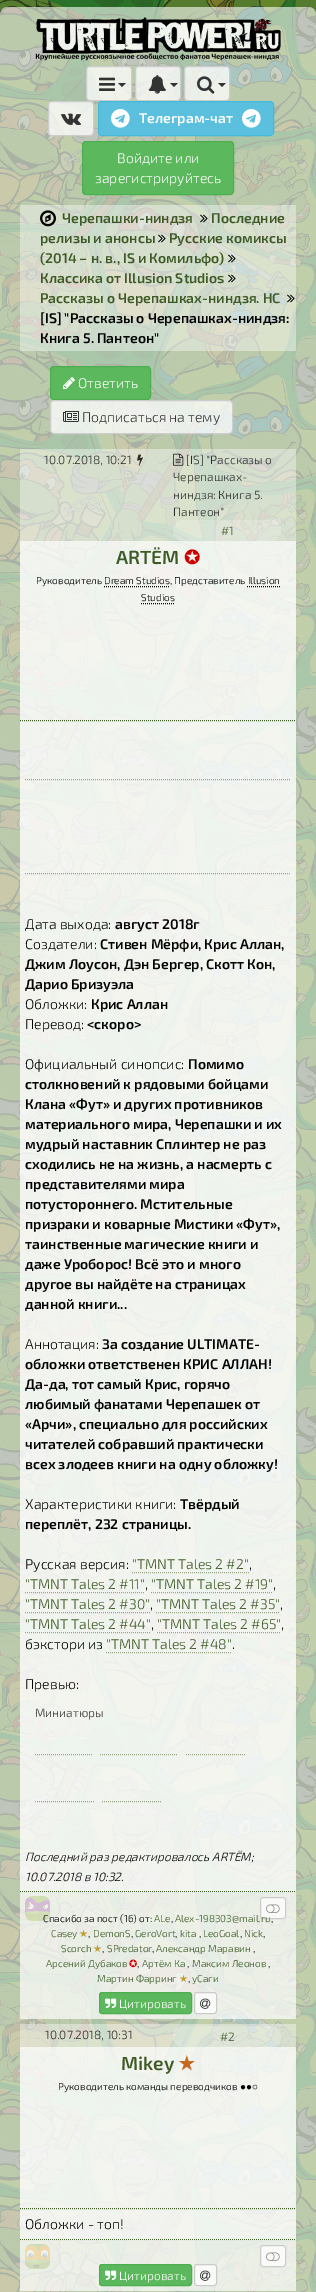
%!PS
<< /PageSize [316 2292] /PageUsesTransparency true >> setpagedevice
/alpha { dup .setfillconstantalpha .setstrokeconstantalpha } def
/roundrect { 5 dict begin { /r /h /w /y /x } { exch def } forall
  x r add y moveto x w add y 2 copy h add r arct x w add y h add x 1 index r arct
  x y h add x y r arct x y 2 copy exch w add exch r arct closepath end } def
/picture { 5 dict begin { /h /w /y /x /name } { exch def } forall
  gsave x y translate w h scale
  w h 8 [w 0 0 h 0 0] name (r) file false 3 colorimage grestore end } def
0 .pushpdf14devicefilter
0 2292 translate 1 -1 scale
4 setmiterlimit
1 setgray
0 0 316 2292 rectfill
(img1.rgb) 0 0 316 2292 picture
(img2.rgb) 35 17 246 44 picture
0.75 alpha
86.5 66.5 45 34 3.5 roundrect fill
1 alpha
0.8 setgray
86.5 66.5 45 34 3.5 roundrect stroke
(img3.rgb) 99 77 16 14 picture
0.2 setgray
newpath 118 83 moveto 126 83 lineto 122 87 lineto closepath fill
0.75 alpha
1 setgray
135.5 66.5 45 34 3.5 roundrect fill
1 alpha
0.8 setgray
135.5 66.5 45 34 3.5 roundrect stroke
(img4.rgb) 148 75 18 19 picture
0.2 setgray
newpath 170 83 moveto 178 83 lineto 174 87 lineto closepath fill
0.75 alpha
1 setgray
184.5 66.5 45 34 3.5 roundrect fill
1 alpha
0.8 setgray
184.5 66.5 45 34 3.5 roundrect stroke
(img5.rgb) 197 76 18 18 picture
0.2 setgray
newpath 218 83 moveto 226 83 lineto 222 87 lineto closepath fill
0.75 alpha
1 setgray
48.5 101.5 45 34 3.5 roundrect fill
1 alpha
0.8 setgray
48.5 101.5 45 34 3.5 roundrect stroke
(img6.rgb) 61 113 20 12 picture
0.357 0.753 0.871 setrgbcolor
98.5 101.5 175 34 3.5 roundrect gsave fill grestore
0.275 0.722 0.855 setrgbcolor
stroke
(img7.rgb) 111 109 19 19 picture
/Exo2-SemiBold [14 0 0 -14 0 0] selectfont
1 setgray
139 123 moveto (Телеграм-чат) show
(img7.rgb) 242 109 19 19 picture
0.361 0.722 0.361 setrgbcolor
82.5 141.5 151 53 3.5 roundrect gsave fill grestore
0.298 0.682 0.298 setrgbcolor
stroke
/Exo2-Light [14 0 0 -14 0 0] selectfont
1 setgray
117 163 moveto (Войдите или) show
95 183 moveto (зарегистрируйтесь) show
0.4 alpha
20 205 276 146 rectfill
1 alpha
(img8.rgb) 40 210 16 17 picture
/Exo2-SemiBold [14 0 0 -14 0 0] selectfont
0.239 0.349 0.145 setrgbcolor
62 223 moveto (Черепашки-ниндзя) show
(img9.rgb) 200 214 8 9 picture
211 223 moveto (Последние) show
40 243 moveto (релизы и анонсы) show
(img10.rgb) 158 234 8 9 picture
169 243 moveto (Русские комиксы) show
40 263 moveto (\(2014 – н. в., IS и Комильфо\)) show
(img11.rgb) 228 254 8 9 picture
40 283 moveto (Классика от Illusion Studios) show
(img12.rgb) 228 274 8 9 picture
40 303 moveto (Рассказы о Черепашках-ниндзя. HC) show
(img13.rgb) 287 294 8 9 picture
0 setgray
40 323 moveto ([IS] "Рассказы о Черепашках-ниндзя:) show
40 343 moveto (Книга 5. Пантеон") show
0.361 0.722 0.361 setrgbcolor
50.5 366.5 100 33 3.5 roundrect gsave fill grestore
0.298 0.682 0.298 setrgbcolor
stroke
(img14.rgb) 63 377 12 12 picture
/Exo2-Light [14 0 0 -14 0 0] selectfont
1 setgray
78 388 moveto (Ответить) show
0.75 alpha
50.5 400.5 182 33 3.5 roundrect fill
1 alpha
0.8 setgray
50.5 400.5 182 33 3.5 roundrect stroke
(img15.rgb) 63 411 16 11 picture
0.2 setgray
82 422 moveto (Подписаться на тему) show
0.4 alpha
1 setgray
20 449 276 92 rectfill
/Exo2-Light [12 0 0 -12 0 0] selectfont
1 alpha
0.169 0.173 0.161 setrgbcolor
44 464 moveto (10.07.2018, 10:21) show
(img16.rgb) 137 454 6 12 picture
(img17.rgb) 173 453 11 13 picture
186 464 moveto ([IS] "Рассказы о) show
173 481 moveto (Черепашках-) show
173 499 moveto (ниндзя: Книга 5.) show
173 516 moveto (Пантеон") show
0.2 alpha
1 setgray
173 520 108 21 10 roundrect fill
1 alpha
0.239 0.349 0.145 setrgbcolor
221 535 moveto (#1) show
0.8 alpha
1 setgray
20 541 276 1351 rectfill
1 alpha
0.239 0.349 0.145 setrgbcolor
[1 1] 0 setdash
newpath 20 720.5 moveto 296 720.5 lineto stroke
/Exo2-SemiBold [19 0 0 -19 0 0] selectfont
116 564 moveto (ARTЁM) show
/DejaVuSans-Bold [19 0 0 -19 0 0] selectfont
0.8 0 0 setrgbcolor
184 564 moveto (✪) show
/Exo2-Light [10 0 0 -10 0 0] selectfont
0 setgray
36 584 moveto (Руководитель Dream Studios, Представитель Illusion) show
newpath 104 586.5 moveto 170 586.5 lineto stroke
newpath 247 586.5 moveto 280 586.5 lineto stroke
141 601 moveto (Studios) show
newpath 141 603.5 moveto 175 603.5 lineto stroke
0.239 0.349 0.145 setrgbcolor
newpath 20 1891.5 moveto 296 1891.5 lineto stroke
0.5 alpha
newpath 25 779.5 moveto 291 779.5 lineto stroke
newpath 25 873.5 moveto 291 873.5 lineto stroke
/Exo2-Light [14 0 0 -14 0 0] selectfont
1 alpha
0 setgray
25 929 moveto (Дата выхода:) show
/Exo2-SemiBold [14 0 0 -14 0 0] selectfont
115 929 moveto (август 2018г) show
/Exo2-Light [14 0 0 -14 0 0] selectfont
25 949 moveto (Создатели:) show
/Exo2-SemiBold [14 0 0 -14 0 0] selectfont
100 949 moveto (Стивен Мёрфи, Крис Аллан,) show
25 969 moveto (Джим Лоусон, Дэн Бергер, Скотт Кон,) show
25 989 moveto (Дарио Бризуэла) show
/Exo2-Light [14 0 0 -14 0 0] selectfont
25 1009 moveto (Обложки:) show
/Exo2-SemiBold [14 0 0 -14 0 0] selectfont
91 1009 moveto (Крис Аллан) show
/Exo2-Light [14 0 0 -14 0 0] selectfont
25 1029 moveto (Перевод:) show
/Exo2-SemiBold [14 0 0 -14 0 0] selectfont
87 1029 moveto (<скоро>) show
/Exo2-Light [14 0 0 -14 0 0] selectfont
25 1069 moveto (Официальный синопсис:) show
/Exo2-SemiBold [14 0 0 -14 0 0] selectfont
188 1069 moveto (Помимо) show
25 1089 moveto (столкновений к рядовыми бойцами) show
25 1109 moveto (Клана «Фут» и других противников) show
25 1129 moveto (материального мира, Черепашки и их) show
25 1149 moveto (мудрый наставник Сплинтер не раз) show
25 1169 moveto (сходились не на жизнь, а насмерть с) show
25 1189 moveto (представителями мира) show
25 1209 moveto (потустороннего. Мстительные) show
25 1229 moveto (призраки и коварные Мистики «Фут»,) show
25 1249 moveto (таинственные магические книги и) show
25 1269 moveto (даже Уроборос! Всё это и много) show
25 1289 moveto (другое вы найдёте на страницах) show
25 1309 moveto (данной книги...) show
/Exo2-Light [14 0 0 -14 0 0] selectfont
25 1349 moveto (Аннотация:) show
/Exo2-SemiBold [14 0 0 -14 0 0] selectfont
102 1349 moveto (За создание ULTIMATE-) show
25 1369 moveto (обложки ответственен КРИС АЛЛАН!) show
25 1389 moveto (Да-да, тот самый Крис, горячо) show
25 1409 moveto (любимый фанатами Черепашек от) show
25 1429 moveto («Арчи», специально для российских) show
25 1449 moveto (читателей собравший практически) show
25 1469 moveto (всех злодеев книги на одну обложку!) show
/Exo2-Light [14 0 0 -14 0 0] selectfont
25 1509 moveto (Характеристики книги:) show
/Exo2-SemiBold [14 0 0 -14 0 0] selectfont
180 1509 moveto (Твёрдый) show
25 1529 moveto (переплёт, 232 страницы.) show
/Exo2-Light [14 0 0 -14 0 0] selectfont
25 1569 moveto (Русская версия:) show
0.239 0.349 0.145 setrgbcolor
132 1569 moveto ("TMNT Tales 2 #2") show
0.5 alpha
newpath 132 1572.5 moveto 249 1572.5 lineto stroke
1 alpha
0 setgray
249 1569 moveto (,) show
0.239 0.349 0.145 setrgbcolor
25 1589 moveto ("TMNT Tales 2 #11") show
0.5 alpha
newpath 25 1592.5 moveto 145 1592.5 lineto stroke
1 alpha
0 setgray
145 1589 moveto (,) show
0.239 0.349 0.145 setrgbcolor
151 1589 moveto ("TMNT Tales 2 #19") show
0.5 alpha
newpath 151 1592.5 moveto 273 1592.5 lineto stroke
1 alpha
0 setgray
273 1589 moveto (,) show
0.239 0.349 0.145 setrgbcolor
25 1609 moveto ("TMNT Tales 2 #30") show
0.5 alpha
newpath 25 1612.5 moveto 150 1612.5 lineto stroke
1 alpha
0 setgray
150 1609 moveto (,) show
0.239 0.349 0.145 setrgbcolor
156 1609 moveto ("TMNT Tales 2 #35") show
0.5 alpha
newpath 156 1612.5 moveto 280 1612.5 lineto stroke
1 alpha
0 setgray
280 1609 moveto (,) show
0.239 0.349 0.145 setrgbcolor
25 1629 moveto ("TMNT Tales 2 #44") show
0.5 alpha
newpath 25 1632.5 moveto 151 1632.5 lineto stroke
1 alpha
0 setgray
151 1629 moveto (,) show
0.239 0.349 0.145 setrgbcolor
157 1629 moveto ("TMNT Tales 2 #65") show
0.5 alpha
newpath 157 1632.5 moveto 281 1632.5 lineto stroke
1 alpha
0 setgray
281 1629 moveto (,) show
25 1649 moveto (бэкстори из) show
0.239 0.349 0.145 setrgbcolor
106 1649 moveto ("TMNT Tales 2 #48") show
0.5 alpha
newpath 106 1652.5 moveto 232 1652.5 lineto stroke
1 alpha
0 setgray
232 1649 moveto (.) show
25 1689 moveto (Превью:) show
/Exo2-Light [12 0 0 -12 0 0] selectfont
0.2 setgray
35 1717 moveto (Миниатюры) show
0.5 alpha
0.239 0.349 0.145 setrgbcolor
newpath 35 1754.5 moveto 92 1754.5 lineto stroke
newpath 100 1754.5 moveto 178 1754.5 lineto stroke
newpath 186 1754.5 moveto 246 1754.5 lineto stroke
newpath 35 1801.5 moveto 94 1801.5 lineto stroke
newpath 102 1801.5 moveto 161 1801.5 lineto stroke
/Exo2-LightItalic [12 0 0 -12 0 0] selectfont
1 alpha
0 setgray
25 1861 moveto (Последний раз редактировалось ARTЁM;) show
25 1881 moveto (10.07.2018 в 10:32.) show
0.7 alpha
1 setgray
20 1892 276 127 rectfill
1 alpha
(img18.rgb) 25 1896 25 25 picture
0.75 alpha
260.5 1897.5 25 21 2.5 roundrect fill
1 alpha
0.8 setgray
[] 0 setdash
260.5 1897.5 25 21 2.5 roundrect stroke
(img19.rgb) 266 1904 14 9 picture
/Exo2-Light [10 0 0 -10 0 0] selectfont
0 setgray
43 1922 moveto (Спасибо за пост \(16\) от:) show
0.239 0.349 0.145 setrgbcolor
154 1922 moveto (ALe) show
0 setgray
171 1922 moveto (,) show
0.239 0.349 0.145 setrgbcolor
175 1922 moveto (Alex-198303@mail.ru) show
0 setgray
271 1922 moveto (,) show
0.239 0.349 0.145 setrgbcolor
51 1937 moveto (Casey) show
/DejaVuSans-Regular [10 0 0 -10 0 0] selectfont
0.745 0.616 0.192 setrgbcolor
79 1937 moveto (★) show
/Exo2-Light [10 0 0 -10 0 0] selectfont
0 setgray
88 1937 moveto (,) show
0.239 0.349 0.145 setrgbcolor
93 1937 moveto (DemonS) show
0 setgray
131 1937 moveto (,) show
0.239 0.349 0.145 setrgbcolor
135 1937 moveto (GeroVort) show
0 setgray
175 1937 moveto (,) show
0.239 0.349 0.145 setrgbcolor
180 1937 moveto (kita) show
0 setgray
199 1937 moveto (,) show
0.239 0.349 0.145 setrgbcolor
203 1937 moveto (LeoGoal) show
0 setgray
240 1937 moveto (,) show
0.239 0.349 0.145 setrgbcolor
244 1937 moveto (Nick) show
0 setgray
263 1937 moveto (,) show
0.239 0.349 0.145 setrgbcolor
61 1952 moveto (Scorch) show
/DejaVuSans-Regular [10 0 0 -10 0 0] selectfont
0.745 0.616 0.192 setrgbcolor
93 1952 moveto (★) show
/Exo2-Light [10 0 0 -10 0 0] selectfont
0 setgray
102 1952 moveto (,) show
0.239 0.349 0.145 setrgbcolor
107 1952 moveto (SPredator) show
0 setgray
152 1952 moveto (,) show
0.239 0.349 0.145 setrgbcolor
156 1952 moveto (Александр Маравин) show
0 setgray
253 1952 moveto (,) show
0.239 0.349 0.145 setrgbcolor
46 1967 moveto (Арсений Дубаков) show
/DejaVuSans-Regular [10 0 0 -10 0 0] selectfont
0.8 0 0 setrgbcolor
129 1967 moveto (✪) show
/Exo2-Light [10 0 0 -10 0 0] selectfont
0 setgray
137 1967 moveto (,) show
0.239 0.349 0.145 setrgbcolor
142 1967 moveto (Артём Ка) show
0 setgray
187 1967 moveto (,) show
0.239 0.349 0.145 setrgbcolor
192 1967 moveto (Максим Леонов) show
0 setgray
268 1967 moveto (,) show
0.239 0.349 0.145 setrgbcolor
97 1982 moveto (Мартин Фарринг) show
/DejaVuSans-Regular [10 0 0 -10 0 0] selectfont
0.745 0.616 0.192 setrgbcolor
179 1982 moveto (★) show
/Exo2-Light [10 0 0 -10 0 0] selectfont
0 setgray
188 1982 moveto (,) show
0.239 0.349 0.145 setrgbcolor
192 1982 moveto (уСаги) show
0.361 0.722 0.361 setrgbcolor
99.5 1992.5 92 21 2.5 roundrect gsave fill grestore
0.298 0.682 0.298 setrgbcolor
stroke
(img20.rgb) 105 1998 12 10 picture
/Exo2-Light [12 0 0 -12 0 0] selectfont
1 setgray
119 2008 moveto (Цитировать) show
0.75 alpha
194.5 1992.5 22 21 2.5 roundrect fill
1 alpha
0.8 setgray
194.5 1992.5 22 21 2.5 roundrect stroke
(img21.rgb) 200 1998 11 11 picture
0.4 alpha
1 setgray
20 2024 276 23 rectfill
1 alpha
0.169 0.173 0.161 setrgbcolor
45 2039 moveto (10.07.2018, 10:31) show
0.2 alpha
1 setgray
173 2026 108 21 10 roundrect fill
1 alpha
0.239 0.349 0.145 setrgbcolor
220 2041 moveto (#2) show
0.8 alpha
1 setgray
20 2047 276 193 rectfill
1 alpha
0.239 0.349 0.145 setrgbcolor
[1 1] 0 setdash
newpath 20 2208.5 moveto 296 2208.5 lineto stroke
/Exo2-SemiBold [19 0 0 -19 0 0] selectfont
121 2070 moveto (Mikey) show
/DejaVuSans-Bold [19 0 0 -19 0 0] selectfont
0.765 0.412 0.129 setrgbcolor
178 2070 moveto (★) show
/Exo2-Light [10 0 0 -10 0 0] selectfont
0 setgray
58 2090 moveto (Руководитель команды переводчиков) show
/LiberationSans-Regular [10 0 0 -10 0 0] selectfont
240 2090 moveto (●●○) show
0.239 0.349 0.145 setrgbcolor
newpath 20 2239.5 moveto 296 2239.5 lineto stroke
/Exo2-Light [14 0 0 -14 0 0] selectfont
0 setgray
25 2229 moveto (Обложки - топ!) show
0.7 alpha
1 setgray
20 2240 276 51 rectfill
1 alpha
(img22.rgb) 25 2244 25 25 picture
0.75 alpha
260.5 2245.5 25 21 2.5 roundrect fill
1 alpha
0.8 setgray
[] 0 setdash
260.5 2245.5 25 21 2.5 roundrect stroke
(img23.rgb) 266 2252 14 9 picture
0.361 0.722 0.361 setrgbcolor
99.5 2264.5 92 21 2.5 roundrect gsave fill grestore
0.298 0.682 0.298 setrgbcolor
stroke
(img20.rgb) 105 2270 12 10 picture
/Exo2-Light [12 0 0 -12 0 0] selectfont
1 setgray
119 2280 moveto (Цитировать) show
0.75 alpha
194.5 2264.5 22 21 2.5 roundrect fill
1 alpha
0.8 setgray
194.5 2264.5 22 21 2.5 roundrect stroke
(img24.rgb) 200 2270 11 11 picture
.poppdf14devicefilter showpage
